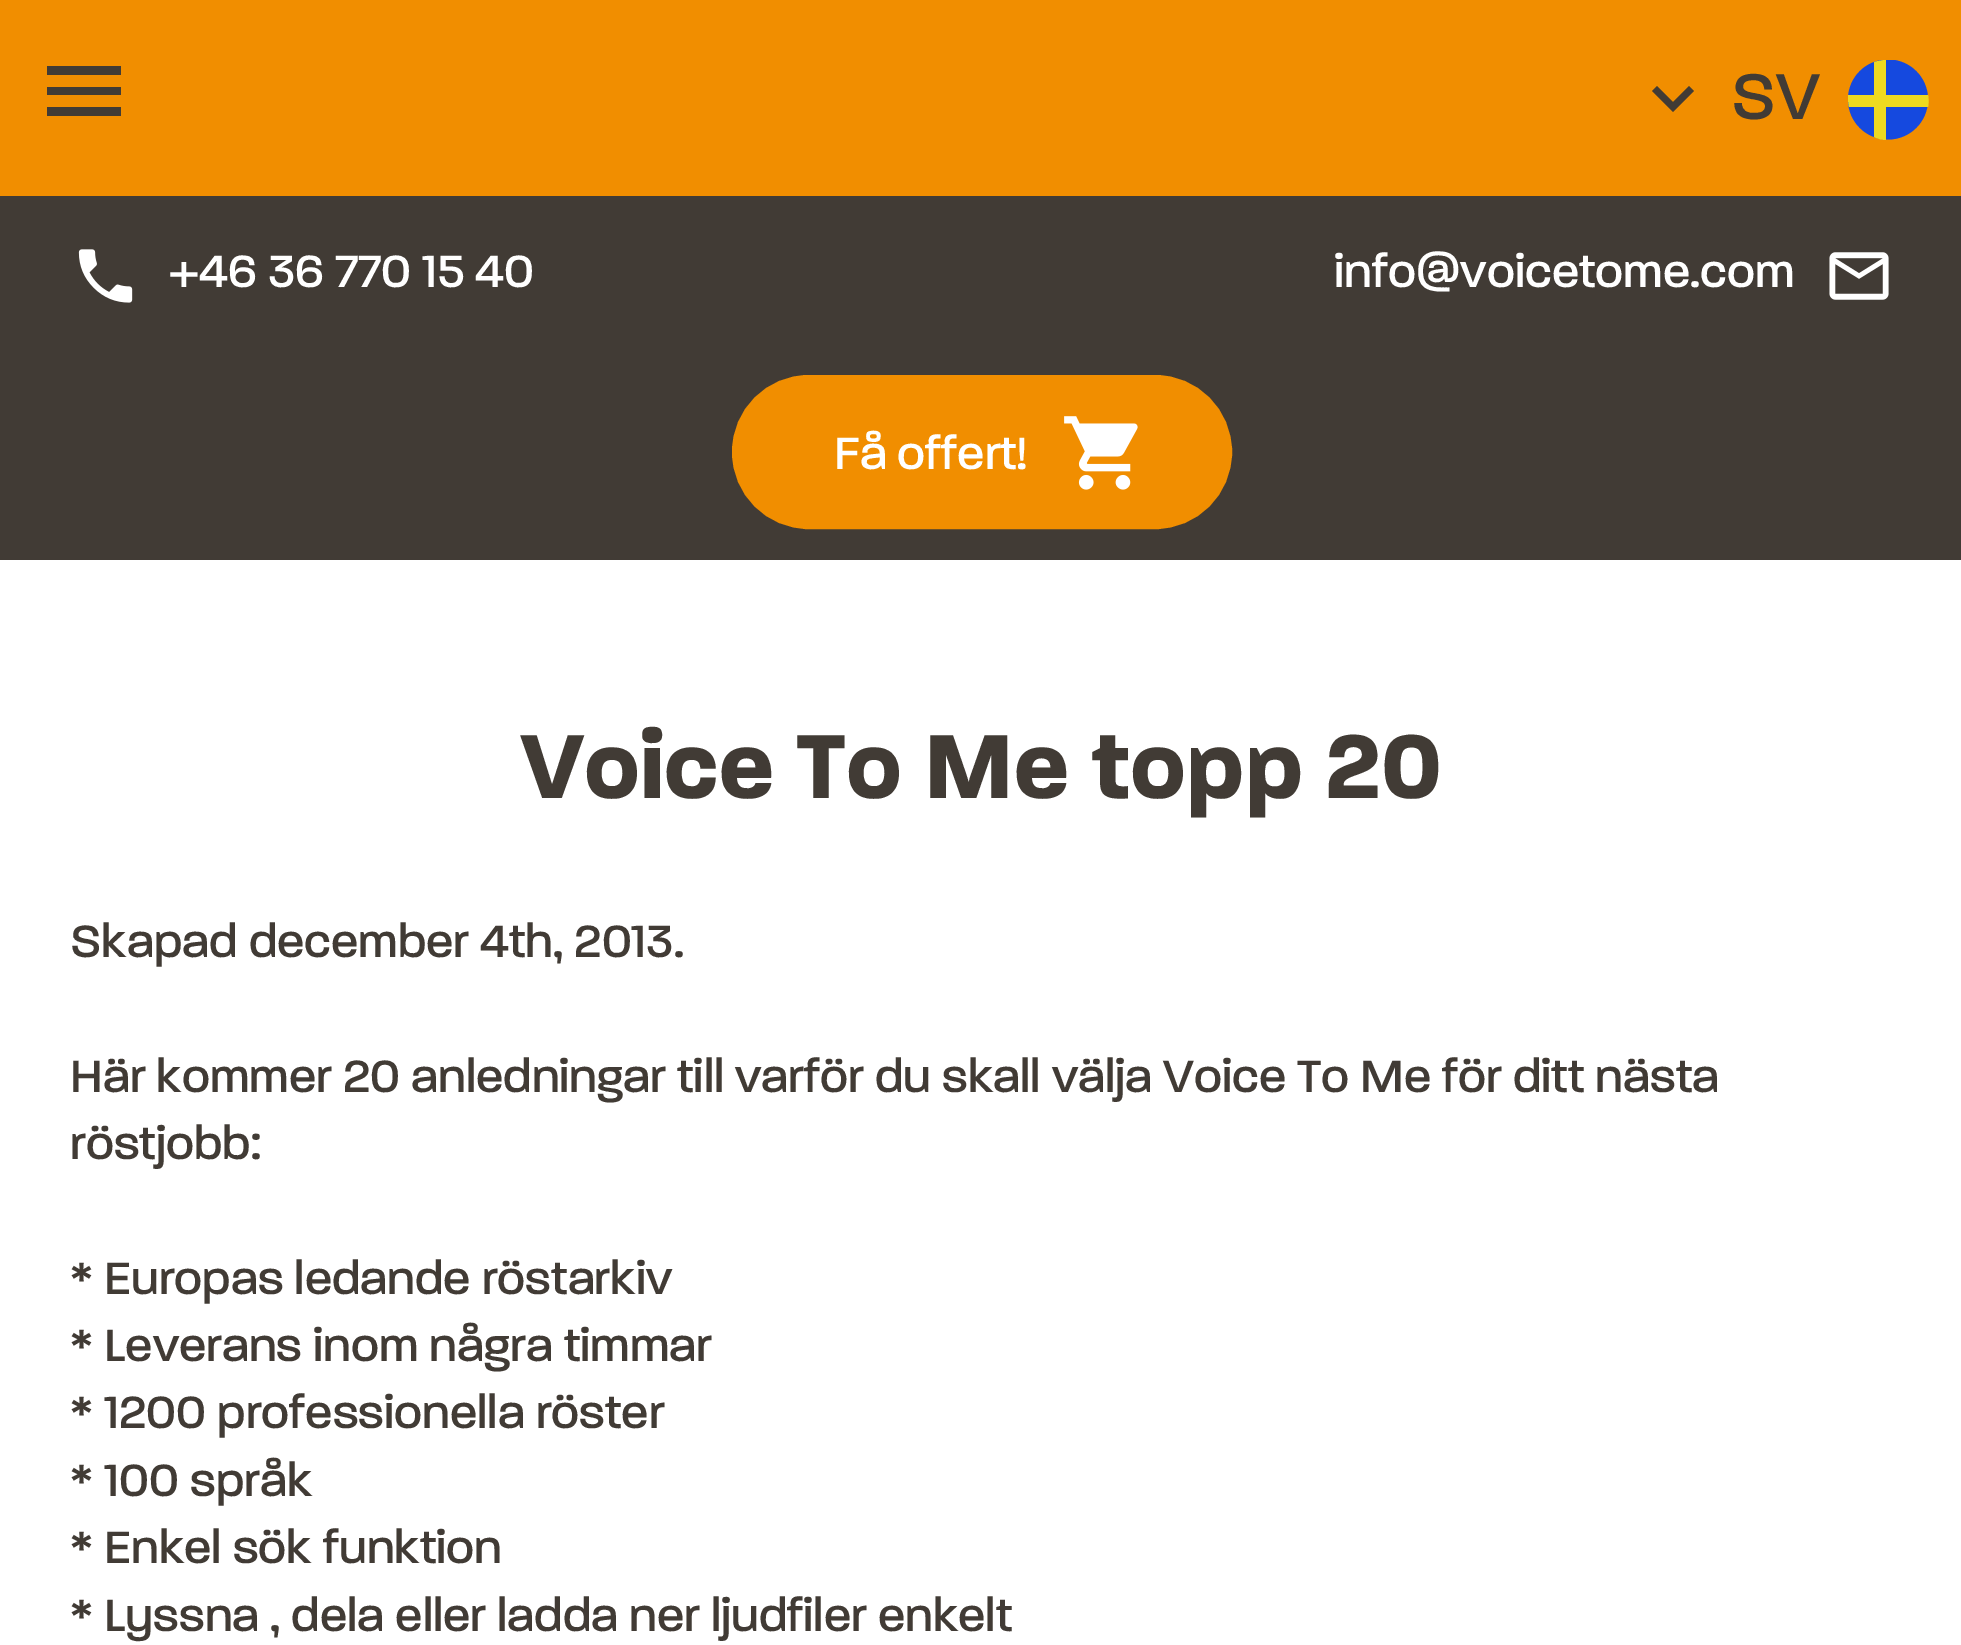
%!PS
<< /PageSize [1961 1645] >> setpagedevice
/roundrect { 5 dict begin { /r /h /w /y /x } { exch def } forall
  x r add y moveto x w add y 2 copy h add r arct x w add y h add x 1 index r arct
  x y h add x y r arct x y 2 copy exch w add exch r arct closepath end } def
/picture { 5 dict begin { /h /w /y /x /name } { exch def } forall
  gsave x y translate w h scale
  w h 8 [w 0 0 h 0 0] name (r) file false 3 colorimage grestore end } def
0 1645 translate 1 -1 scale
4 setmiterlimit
1 setgray
0 0 1961 1645 rectfill
0.945 0.557 0 setrgbcolor
0 0 1961 196 rectfill
0.255 0.231 0.208 setrgbcolor
newpath 47 66 moveto 121 66 lineto 121 75 lineto 47 75 lineto closepath 47 95 moveto 47 87 lineto 121 87 lineto 121 95 lineto closepath 47 116 moveto 47 107 lineto 121 107 lineto 121 116 lineto closepath fill
gsave
1848 60 81 80 rectclip
0.082 0.286 0.875 setrgbcolor
newpath 1888 99.5 40 0 360 arc closepath fill
grestore
newpath 1657 86 moveto 1673 102 lineto 1689 86 lineto 1694 91 lineto 1673 112 lineto 1652 91 lineto closepath fill
/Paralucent-Medium [70 0 0 -70 0 0] selectfont
1731 119 moveto (SV) show
0.933 0.855 0.125 setrgbcolor
newpath 1874 137 moveto 1874 107 lineto 1849 107 lineto 1848 103 1848 99 1848 95 curveto 1874 95 lineto 1874 62 lineto 1878 61 1882 60 1886 60 curveto 1886 95 lineto 1928 95 lineto 1929 99 1929 103 1928 107 curveto 1886 107 lineto 1886 140 lineto 1882 140 1878 139 1874 137 curveto closepath fill
0.255 0.231 0.208 setrgbcolor
0 196 1961 364 rectfill
(img1.rgb) 78 249 55 54 picture
/Paralucent-Medium [49 0 0 -49 0 0] selectfont
1 setgray
169 287 moveto (+46 36 770 15 40) show
1334 287 moveto (info@voicetome.com) show
(img2.rgb) 1829 252 60 48 picture
0.945 0.557 0 setrgbcolor
734 377 496 150 75 roundrect gsave fill grestore
4 setlinewidth
stroke
1 setgray
834 469 moveto (Få offert!) show
(img3.rgb) 1064 416 74 74 picture
/Paralucent-Bold [98 0 0 -98 0 0] selectfont
0.255 0.231 0.208 setrgbcolor
521 798 moveto (Voice To Me topp 20) show
/Paralucent-Medium [49 0 0 -49 0 0] selectfont
70 957 moveto (Skapad december 4th, 2013.) show
70 1092 moveto (Här kommer 20 anledningar till varför du skall välja Voice To Me för ditt nästa) show
70 1159 moveto (röstjobb:) show
70 1294 moveto (* Europas ledande röstarkiv) show
70 1361 moveto (* Leverans inom några timmar) show
70 1428 moveto (* 1200 professionella röster) show
70 1496 moveto (* 100 språk) show
70 1563 moveto (* Enkel sök funktion) show
70 1631 moveto (* Lyssna , dela eller ladda ner ljudfiler enkelt) show
showpage
